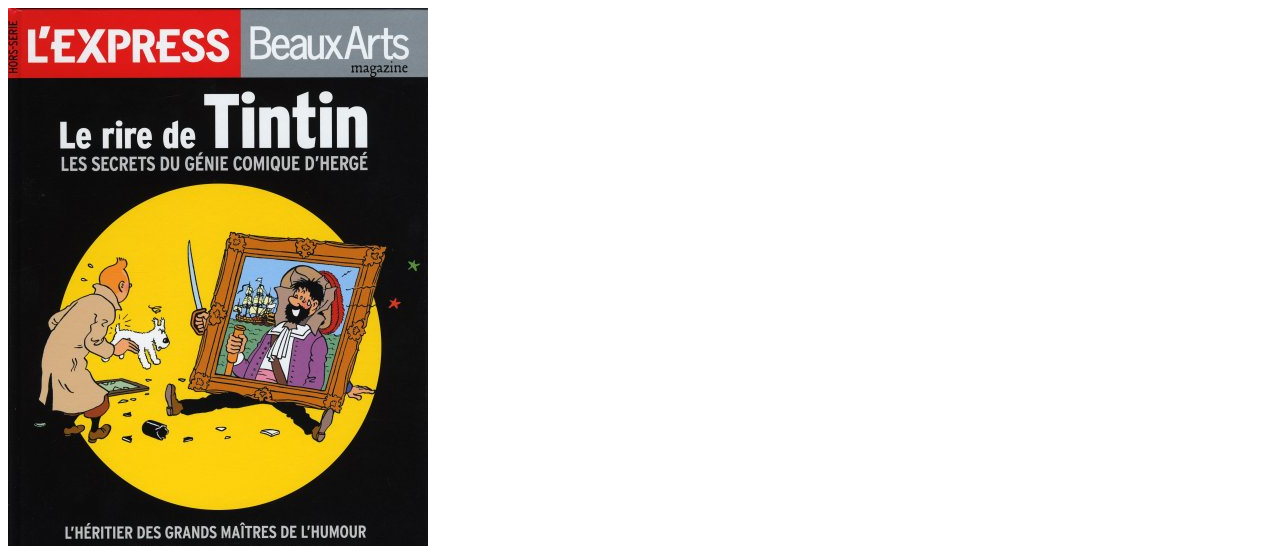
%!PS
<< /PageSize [1266 546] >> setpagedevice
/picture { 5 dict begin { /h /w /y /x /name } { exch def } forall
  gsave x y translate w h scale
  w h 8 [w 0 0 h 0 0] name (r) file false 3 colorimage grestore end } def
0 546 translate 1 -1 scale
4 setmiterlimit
1 setgray
0 0 1266 546 rectfill
(img1.rgb) 8 8 420 538 picture
showpage
